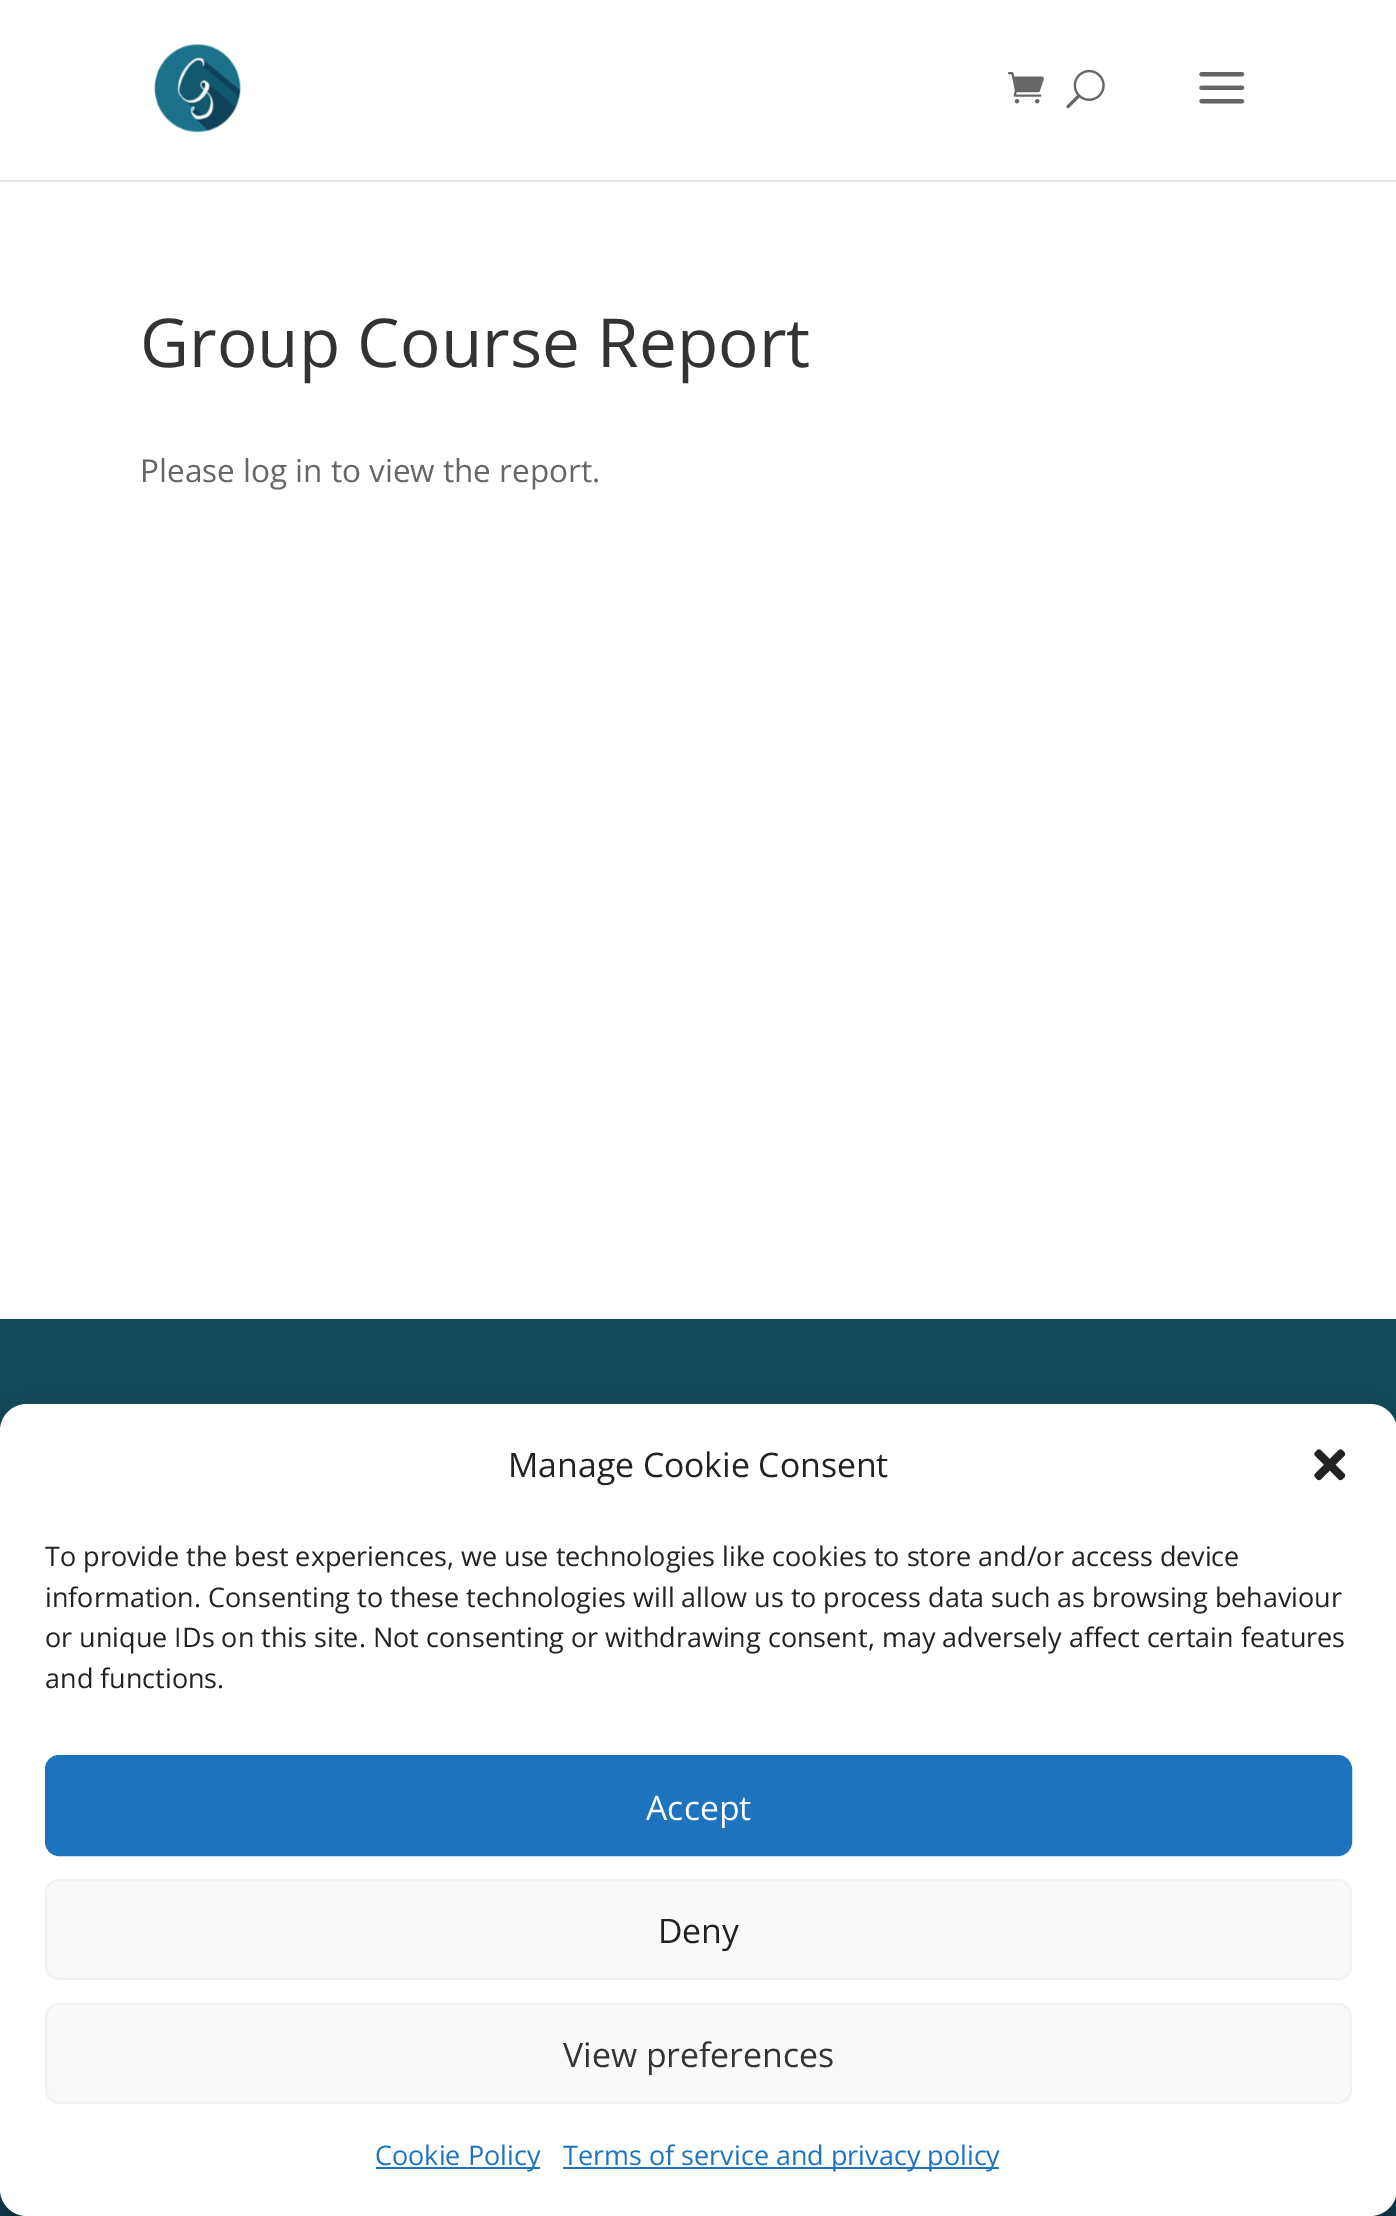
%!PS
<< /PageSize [1396 2216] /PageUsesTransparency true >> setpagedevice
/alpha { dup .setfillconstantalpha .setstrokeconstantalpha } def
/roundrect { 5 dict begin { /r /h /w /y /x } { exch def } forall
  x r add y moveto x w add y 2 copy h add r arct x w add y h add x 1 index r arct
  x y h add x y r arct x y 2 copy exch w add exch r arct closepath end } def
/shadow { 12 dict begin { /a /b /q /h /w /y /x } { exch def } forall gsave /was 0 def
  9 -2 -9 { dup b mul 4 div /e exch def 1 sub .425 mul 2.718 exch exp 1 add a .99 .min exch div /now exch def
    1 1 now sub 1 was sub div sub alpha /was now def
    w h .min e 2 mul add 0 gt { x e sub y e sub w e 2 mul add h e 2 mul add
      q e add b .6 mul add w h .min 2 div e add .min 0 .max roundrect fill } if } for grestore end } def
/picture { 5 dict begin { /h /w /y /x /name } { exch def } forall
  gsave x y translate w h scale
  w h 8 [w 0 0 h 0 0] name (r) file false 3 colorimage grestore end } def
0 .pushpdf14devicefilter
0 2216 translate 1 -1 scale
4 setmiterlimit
1 setgray
0 0 1396 2216 rectfill
0.902 setgray
0 180 1396 2 rectfill
(img1.rgb) 154 44 88 89 picture
(img2.rgb) 1008 72 36 32 picture
(img3.rgb) 1066 69 39 40 picture
(img4.rgb) 1199 72 46 32 picture
/OpenSans-Regular [67.5 0 0 -67.5 0 0] selectfont
0.2 setgray
140 367 moveto (Group Course Report) show
/OpenSans-Regular [31.5 0 0 -31.5 0 0] selectfont
0.4 setgray
140 482 moveto (Please log in to view the report.) show
0.067 0.29 0.349 setrgbcolor
0 1319 1396 112 rectfill
0.063 0.263 0.353 setrgbcolor
0 2189 1396 27 rectfill
0 setgray
0 1418 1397 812 27 7 0.23 shadow
0 1427 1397 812 27 22.5 0.19 shadow
1 setgray
0 1404 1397 812 27 roundrect fill
/OpenSans-Regular [33.75 0 0 -33.75 0 0] selectfont
0.133 setgray
508 1477 moveto (Manage Cookie Consent) show
(img5.rgb) 1314 1449 32 32 picture
/OpenSans-Regular [27 0 0 -27 0 0] selectfont
45 1566 moveto (To provide the best experiences, we use technologies like cookies to store and/or access device) show
45 1607 moveto (information. Consenting to these technologies will allow us to process data such as browsing behaviour) show
45 1647 moveto (or unique IDs on this site. Not consenting or withdrawing consent, may adversely affect certain features) show
45 1688 moveto (and functions.) show
0.118 0.451 0.745 setrgbcolor
46 1756 1305 99 13 roundrect gsave fill grestore
2 setlinewidth
stroke
/OpenSans-Regular [33.75 0 0 -33.75 0 0] selectfont
1 setgray
646 1820 moveto (Accept) show
0.976 setgray
46 1880 1305 99 13 roundrect gsave fill grestore
0.949 setgray
stroke
0.133 setgray
658 1943 moveto (Deny) show
0.976 setgray
46 2004 1305 99 13 roundrect gsave fill grestore
0.949 setgray
stroke
0.2 setgray
563 2067 moveto (View preferences) show
0.118 0.451 0.745 setrgbcolor
376 2167 164 2 rectfill
/OpenSans-Regular [27 0 0 -27 0 0] selectfont
375 2165 moveto (Cookie Policy) show
563 2167 436 2 rectfill
563 2165 moveto (Terms of service and privacy policy) show
.poppdf14devicefilter showpage
